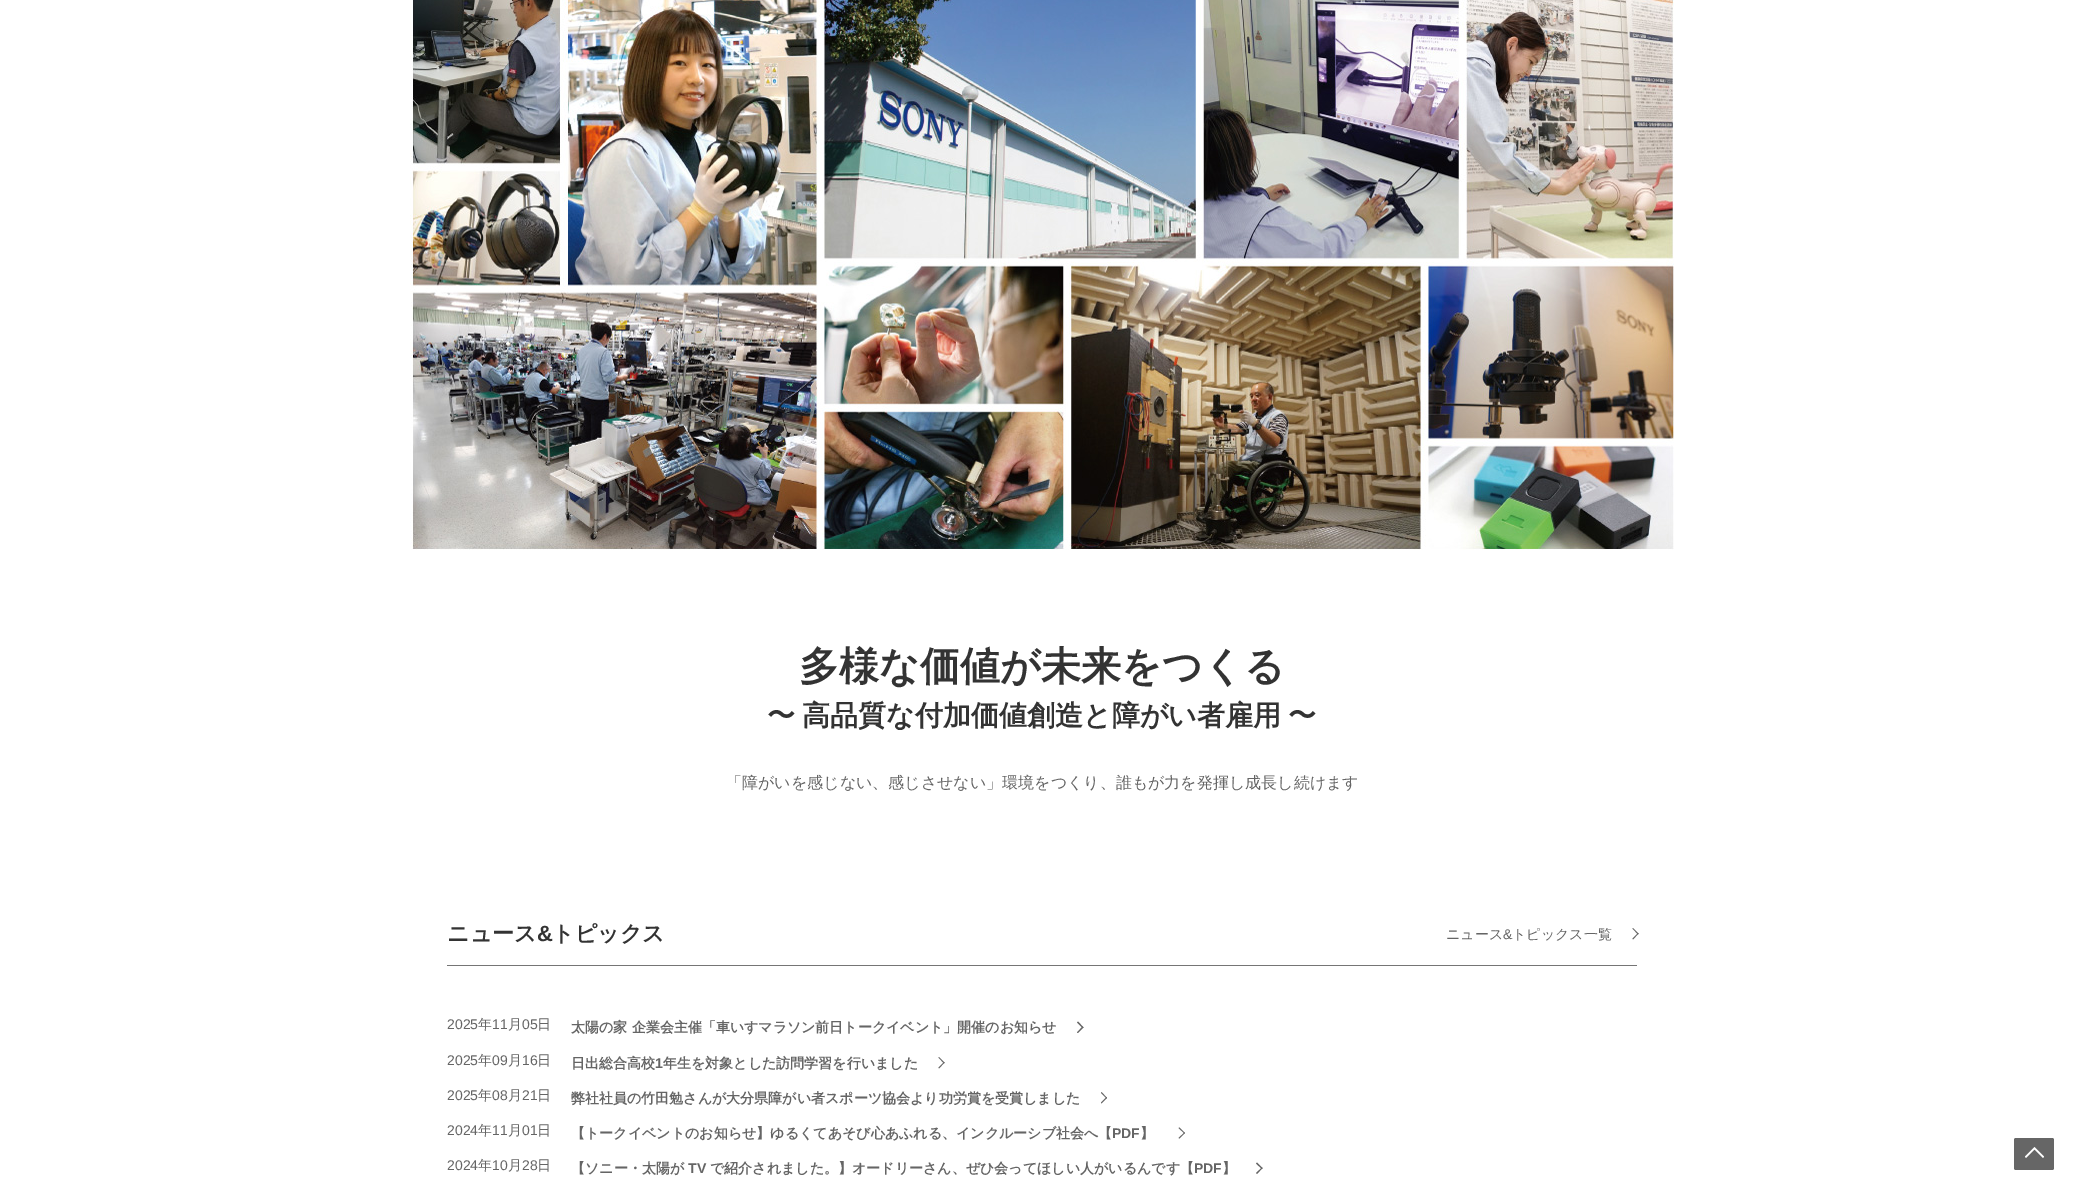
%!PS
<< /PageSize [2084 1200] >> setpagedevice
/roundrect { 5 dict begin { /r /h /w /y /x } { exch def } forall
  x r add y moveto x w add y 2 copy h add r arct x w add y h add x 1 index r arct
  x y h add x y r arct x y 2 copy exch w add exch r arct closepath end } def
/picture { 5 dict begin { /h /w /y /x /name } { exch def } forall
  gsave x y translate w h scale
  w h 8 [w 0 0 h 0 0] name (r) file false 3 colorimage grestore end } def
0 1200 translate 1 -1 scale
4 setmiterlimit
1 setgray
0 0 2084 1200 rectfill
(img1.rgb) 410 0 1264 550 picture
/WenQuanYiZenHei-Bold [40 0 0 -40 0 0] selectfont
0.2 setgray
799 680 moveto (多様な価値が未来をつくる) show
/WenQuanYiZenHei-Bold [28 0 0 -28 0 0] selectfont
767 725 moveto -1 0 32 (〜 高品質な付加価値創造と障がい者雇用 〜) widthshow
/WenQuanYiZenHei-Medium [16 0 0 -16 0 0] selectfont
0.396 setgray
726 788 moveto (「障がいを感じない、感じさせない」環境をつくり、誰もが力を発揮し成長し続けます) show
0.459 setgray
447 965 1190 1 rectfill
/WenQuanYiZenHei-Bold [22 0 0 -22 0 0] selectfont
0.2 setgray
447 941 moveto (ニュース) show
/LiberationSans-Bold [22 0 0 -22 0 0] selectfont
537 941 moveto (&) show
/WenQuanYiZenHei-Bold [22 0 0 -22 0 0] selectfont
552 941 moveto (トピックス) show
/WenQuanYiZenHei-Medium [14 0 0 -14 0 0] selectfont
0.396 setgray
1446 939 moveto (ニュース) show
/LiberationSans-Regular [14 0 0 -14 0 0] selectfont
1503 939 moveto (&) show
/WenQuanYiZenHei-Medium [14 0 0 -14 0 0] selectfont
1512 939 moveto (トピックス一覧) show
newpath 1633 928 moveto 1638.5 933.5 lineto 1638 934.5 lineto 1632.5 928.5 lineto closepath fill
newpath 1638 933 moveto 1638.5 933.5 lineto 1633 939.5 lineto 1632.5 938.5 lineto closepath fill
/LiberationSans-Regular [14 0 0 -14 0 0] selectfont
447 1029 moveto (2025) show
/WenQuanYiZenHei-Medium [14 0 0 -14 0 0] selectfont
478 1029 moveto (年) show
/LiberationSans-Regular [14 0 0 -14 0 0] selectfont
492 1029 moveto (11) show
/WenQuanYiZenHei-Medium [14 0 0 -14 0 0] selectfont
508 1029 moveto (月) show
/LiberationSans-Regular [14 0 0 -14 0 0] selectfont
522 1029 moveto (05) show
/WenQuanYiZenHei-Medium [14 0 0 -14 0 0] selectfont
537 1029 moveto (日) show
/WenQuanYiZenHei-Bold [14 0 0 -14 0 0] selectfont
571 1032 moveto (太陽の家 企業会主催「車いすマラソン前日トークイベント」開催のお知らせ) show
newpath 1078 1021.5 moveto 1083.5 1027.5 lineto 1082.5 1028 lineto 1077 1022.5 lineto closepath fill
newpath 1082.5 1026.5 moveto 1083.5 1027.5 lineto 1078 1033 lineto 1077 1032.5 lineto closepath fill
/LiberationSans-Regular [14 0 0 -14 0 0] selectfont
447 1065 moveto (2025) show
/WenQuanYiZenHei-Medium [14 0 0 -14 0 0] selectfont
478 1065 moveto (年) show
/LiberationSans-Regular [14 0 0 -14 0 0] selectfont
492 1065 moveto (09) show
/WenQuanYiZenHei-Medium [14 0 0 -14 0 0] selectfont
508 1065 moveto (月) show
/LiberationSans-Regular [14 0 0 -14 0 0] selectfont
522 1065 moveto (16) show
/WenQuanYiZenHei-Medium [14 0 0 -14 0 0] selectfont
537 1065 moveto (日) show
/WenQuanYiZenHei-Bold [14 0 0 -14 0 0] selectfont
571 1068 moveto (日出総合高校) show
/LiberationSans-Bold [14 0 0 -14 0 0] selectfont
655 1068 moveto (1) show
/WenQuanYiZenHei-Bold [14 0 0 -14 0 0] selectfont
663 1068 moveto (年生を対象とした訪問学習を行いました) show
newpath 939 1057 moveto 944.5 1062.5 lineto 944 1063.5 lineto 938.5 1057.5 lineto closepath fill
newpath 944 1062 moveto 944.5 1062.5 lineto 939 1068.5 lineto 938.5 1067.5 lineto closepath fill
/LiberationSans-Regular [14 0 0 -14 0 0] selectfont
447 1100 moveto (2025) show
/WenQuanYiZenHei-Medium [14 0 0 -14 0 0] selectfont
478 1100 moveto (年) show
/LiberationSans-Regular [14 0 0 -14 0 0] selectfont
492 1100 moveto (08) show
/WenQuanYiZenHei-Medium [14 0 0 -14 0 0] selectfont
508 1100 moveto (月) show
/LiberationSans-Regular [14 0 0 -14 0 0] selectfont
522 1100 moveto (21) show
/WenQuanYiZenHei-Medium [14 0 0 -14 0 0] selectfont
537 1100 moveto (日) show
/WenQuanYiZenHei-Bold [14 0 0 -14 0 0] selectfont
571 1103 moveto (弊社社員の竹田勉さんが大分県障がい者スポーツ協会より功労賞を受賞しました) show
newpath 1101.5 1092 moveto 1107 1098 lineto 1106.5 1098.5 lineto 1101 1093 lineto closepath fill
newpath 1106.5 1097 moveto 1107 1098 lineto 1101.5 1103.5 lineto 1101 1102.5 lineto closepath fill
/LiberationSans-Regular [14 0 0 -14 0 0] selectfont
447 1135 moveto (2024) show
/WenQuanYiZenHei-Medium [14 0 0 -14 0 0] selectfont
478 1135 moveto (年) show
/LiberationSans-Regular [14 0 0 -14 0 0] selectfont
492 1135 moveto (11) show
/WenQuanYiZenHei-Medium [14 0 0 -14 0 0] selectfont
508 1135 moveto (月) show
/LiberationSans-Regular [14 0 0 -14 0 0] selectfont
522 1135 moveto (01) show
/WenQuanYiZenHei-Medium [14 0 0 -14 0 0] selectfont
537 1135 moveto (日) show
/WenQuanYiZenHei-Bold [14 0 0 -14 0 0] selectfont
571 1138 moveto (【トークイベントのお知らせ】ゆるくてあそび心あふれる、インクルーシブ社会へ【) show
/LiberationSans-Bold [14 0 0 -14 0 0] selectfont
1112 1138 moveto (PDF) show
/WenQuanYiZenHei-Bold [14 0 0 -14 0 0] selectfont
1140 1138 moveto (】) show
newpath 1179.5 1127.5 moveto 1185 1133 lineto 1184.5 1133.5 lineto 1178.5 1128 lineto closepath fill
newpath 1184.5 1132.5 moveto 1185 1133 lineto 1179.5 1138.5 lineto 1178.5 1138 lineto closepath fill
/LiberationSans-Regular [14 0 0 -14 0 0] selectfont
447 1170 moveto (2024) show
/WenQuanYiZenHei-Medium [14 0 0 -14 0 0] selectfont
478 1170 moveto (年) show
/LiberationSans-Regular [14 0 0 -14 0 0] selectfont
492 1170 moveto (10) show
/WenQuanYiZenHei-Medium [14 0 0 -14 0 0] selectfont
508 1170 moveto (月) show
/LiberationSans-Regular [14 0 0 -14 0 0] selectfont
522 1170 moveto (28) show
/WenQuanYiZenHei-Medium [14 0 0 -14 0 0] selectfont
537 1170 moveto (日) show
/WenQuanYiZenHei-Bold [14 0 0 -14 0 0] selectfont
571 1173 moveto (【ソニー・太陽が) show
/LiberationSans-Bold [14 0 0 -14 0 0] selectfont
688 1173 moveto (TV) show
/WenQuanYiZenHei-Bold [14 0 0 -14 0 0] selectfont
710 1173 moveto (で紹介されました。】オードリーさん、ぜひ会ってほしい人がいるんです【) show
/LiberationSans-Bold [14 0 0 -14 0 0] selectfont
1194 1173 moveto (PDF) show
/WenQuanYiZenHei-Bold [14 0 0 -14 0 0] selectfont
1222 1173 moveto (】) show
newpath 1257 1162.5 moveto 1262.5 1168 lineto 1262 1169 lineto 1256 1163.5 lineto closepath fill
newpath 1262 1167.5 moveto 1262.5 1168 lineto 1257 1174 lineto 1256 1173 lineto closepath fill
0.4 setgray
2014 1138 40 32 2 roundrect fill
1 setgray
newpath 2043 1158 moveto 2034.5 1149.5 lineto 2026 1158 lineto 2025 1156.5 lineto 2034.5 1147 lineto 2044 1156.5 lineto closepath fill
showpage
